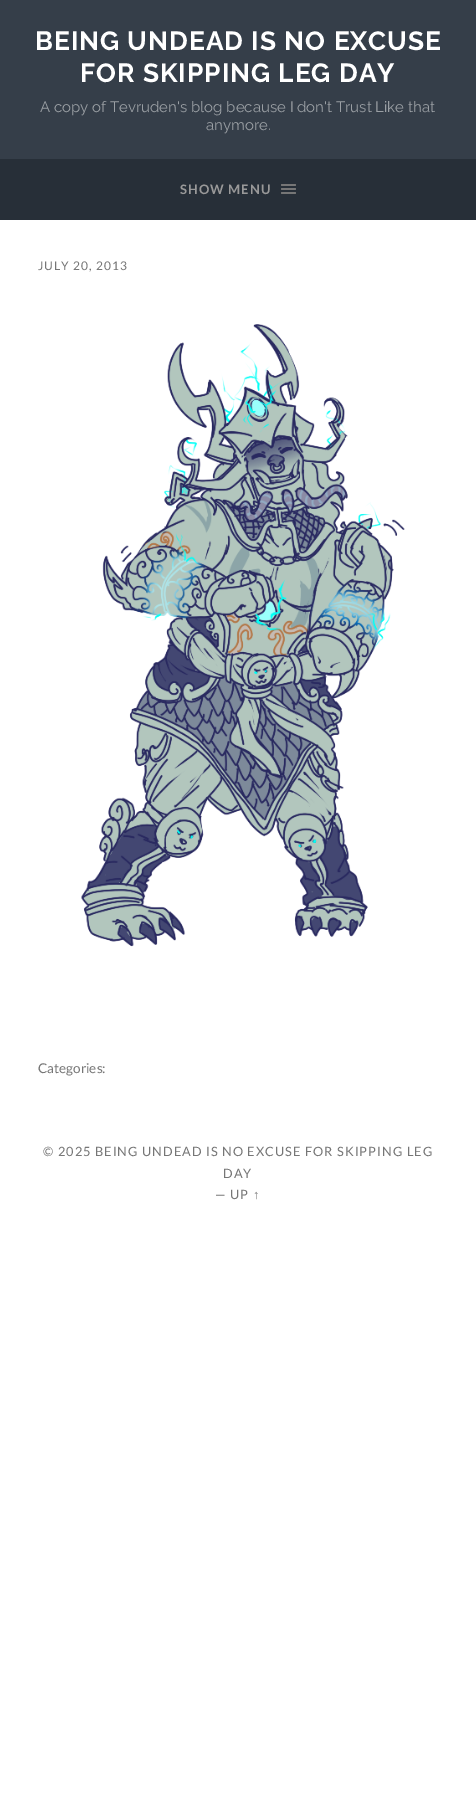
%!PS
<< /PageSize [476 1817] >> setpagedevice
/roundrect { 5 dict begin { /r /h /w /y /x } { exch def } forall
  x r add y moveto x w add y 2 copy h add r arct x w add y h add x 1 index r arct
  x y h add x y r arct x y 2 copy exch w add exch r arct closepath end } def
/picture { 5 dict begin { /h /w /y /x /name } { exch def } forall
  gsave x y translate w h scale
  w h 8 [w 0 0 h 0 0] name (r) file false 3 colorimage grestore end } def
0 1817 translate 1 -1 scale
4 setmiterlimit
1 setgray
0 0 476 1817 rectfill
0.208 0.243 0.286 setrgbcolor
0 0 476 159 rectfill
/Raleway-Bold [26.25 0 0 -26.25 0 0] selectfont
1 setgray
35 50 moveto 1 0 (BEING UNDEAD IS NO EXCUSE) ashow
80 82 moveto 1 0 (FOR SKIPPING LEG DAY) ashow
/Raleway-Regular [15 0 0 -15 0 0] selectfont
0.604 0.624 0.643 setrgbcolor
40 112 moveto (A copy of Tevruden's blog because I don't Trust Like that) show
206 130 moveto (anymore.) show
0.153 0.184 0.22 setrgbcolor
0 159 476 61 rectfill
/Lato-Bold [13 0 0 -13 0 0] selectfont
0.6 setgray
180 194 moveto 1 0 (SHOW MENU) ashow
0.463 setgray
281 184 15 2 1 roundrect fill
281 188 15 2 1 roundrect fill
281 192 15 2 1 roundrect fill
/Lato-Regular [12 0 0 -12 0 0] selectfont
38 270 moveto 1 0 (JULY 20, 2013) ashow
(img1.rgb) 81 324 324 623 picture
/Lato-Regular [13.5 0 0 -13.5 0 0] selectfont
38 1073 moveto (Categories:) show
/Lato-Regular [12.8 0 0 -12.8 0 0] selectfont
43 1156 moveto 1 0 (© 2025 BEING UNDEAD IS NO EXCUSE FOR SKIPPING LEG) ashow
223 1178 moveto 1 0 (DAY) ashow
215 1199 moveto 1 0 (— UP) ashow
/LiberationSans-Regular [12.8 0 0 -12.8 0 0] selectfont
253 1199 moveto 1 0 (↑) ashow
showpage
